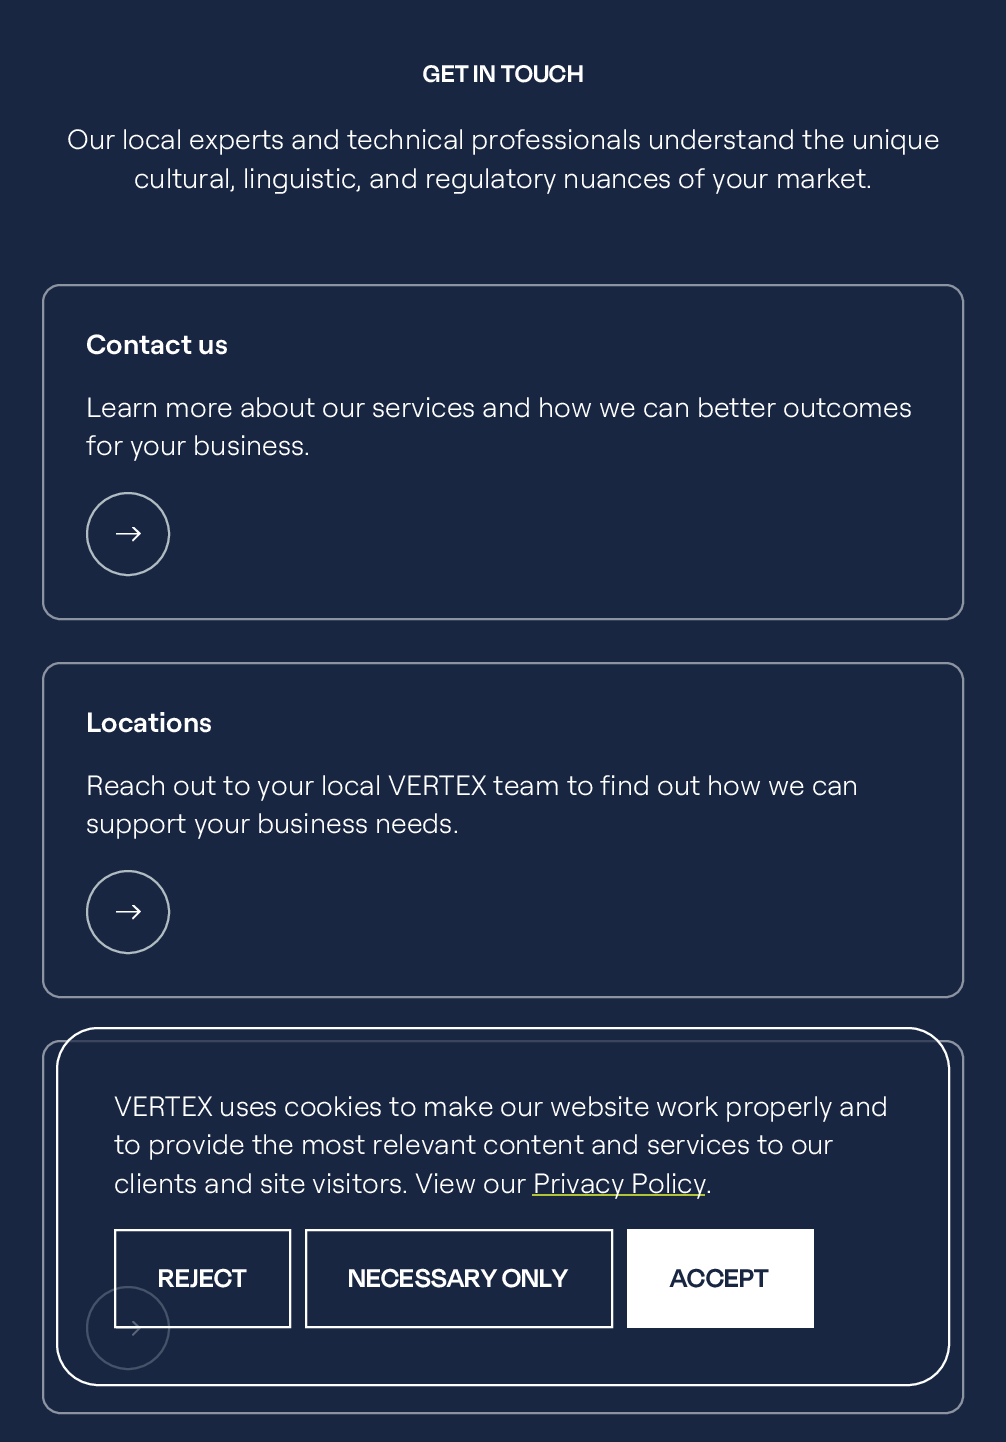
%!PS
<< /PageSize [1006 1442] /PageUsesTransparency true >> setpagedevice
/alpha { dup .setfillconstantalpha .setstrokeconstantalpha } def
/roundrect { 5 dict begin { /r /h /w /y /x } { exch def } forall
  x r add y moveto x w add y 2 copy h add r arct x w add y h add x 1 index r arct
  x y h add x y r arct x y 2 copy exch w add exch r arct closepath end } def
0 .pushpdf14devicefilter
0 1442 translate 1 -1 scale
4 setmiterlimit
0.094 0.149 0.259 setrgbcolor
0 0 1006 1442 rectfill
/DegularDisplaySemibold-SemiBold [27.75 0 0 -27.75 0 0] selectfont
1 setgray
423 82 moveto 0.4 0 (GET IN TOUCH) ashow
/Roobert-Light [28 0 0 -28 0 0] selectfont
67 149 moveto (Our local experts and technical professionals understand the unique) show
134 188 moveto (cultural, linguistic, and regulatory nuances of your market.) show
0.549 0.576 0.631 setrgbcolor
2 setlinewidth
43 285 920 334 17 roundrect stroke
/Roobert-SemiBold [27.75 0 0 -27.75 0 0] selectfont
1 setgray
86 354 moveto 0.1 0 (Contact us) ashow
/Roobert-Light [28 0 0 -28 0 0] selectfont
86 417 moveto (Learn more about our services and how we can better outcomes) show
86 455 moveto (for your business.) show
0.69 0.737 0.761 setrgbcolor
newpath 128 534 41 0 360 arc closepath stroke
gsave
116 527 26 16 rectclip
1 setgray
newpath 137.5 533 moveto 132 527.5 lineto 133 526 lineto 141 533.5 lineto 133 541.5 lineto 132 540 lineto 137.5 534.5 lineto 114.5 534.5 lineto 114.5 533 lineto closepath eofill
grestore
0.549 0.576 0.631 setrgbcolor
43 663 920 334 17 roundrect stroke
/Roobert-SemiBold [27.75 0 0 -27.75 0 0] selectfont
1 setgray
86 732 moveto 0.1 0 (Locations) ashow
/Roobert-Light [28 0 0 -28 0 0] selectfont
86 795 moveto (Reach out to your local VERTEX team to find out how we can) show
86 833 moveto (support your business needs.) show
0.69 0.737 0.761 setrgbcolor
newpath 128 912 41 0 360 arc closepath stroke
gsave
116 905 26 16 rectclip
1 setgray
newpath 137.5 911 moveto 132 905.5 lineto 133 904 lineto 141 911.5 lineto 133 919.5 lineto 132 918 lineto 137.5 912.5 lineto 114.5 912.5 lineto 114.5 911 lineto closepath eofill
grestore
0.549 0.576 0.631 setrgbcolor
43 1041 920 372 17 roundrect stroke
0.69 0.737 0.761 setrgbcolor
newpath 128 1328 41 0 360 arc closepath stroke
gsave
116 1321 26 16 rectclip
1 setgray
newpath 137.5 1327.5 moveto 132 1322 lineto 133 1320.5 lineto 141 1328 lineto 133 1336 lineto 132 1334.5 lineto 137.5 1329 lineto 114.5 1329 lineto 114.5 1327.5 lineto closepath eofill
grestore
0.7 alpha
0.094 0.149 0.259 setrgbcolor
57 1028 892 357 41 roundrect fill
1 alpha
1 setgray
57 1028 892 357 41 roundrect stroke
114 1116 moveto (VERTEX uses cookies to make our website work properly and) show
114 1154 moveto (to provide the most relevant content and services to our) show
114 1193 moveto (clients and site visitors. View our) show
0.698 0.765 0.212 setrgbcolor
532 1194 173 2 rectfill
1 setgray
533 1193 moveto (Privacy Policy.) show
115 1230 175 97 rectstroke
/DegularDisplaySemibold-SemiBold [29.75 0 0 -29.75 0 0] selectfont
158 1287 moveto 0.25 0 (REJECT) ashow
306 1230 306 97 rectstroke
348 1287 moveto 0.25 0 (NECESSARY ONLY) ashow
627 1229 187 99 rectfill
0.094 0.149 0.259 setrgbcolor
670 1287 moveto 0.25 0 (ACCEPT) ashow
.poppdf14devicefilter showpage
